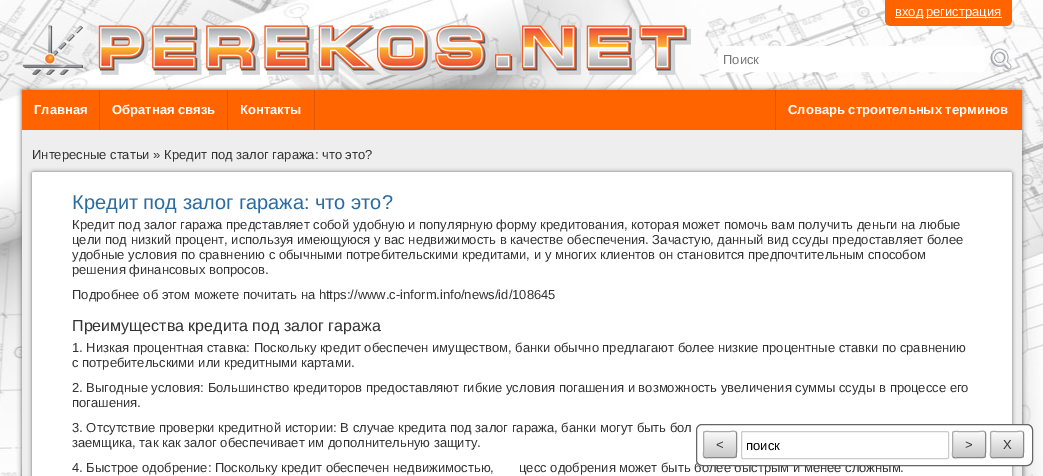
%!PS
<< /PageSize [1043 476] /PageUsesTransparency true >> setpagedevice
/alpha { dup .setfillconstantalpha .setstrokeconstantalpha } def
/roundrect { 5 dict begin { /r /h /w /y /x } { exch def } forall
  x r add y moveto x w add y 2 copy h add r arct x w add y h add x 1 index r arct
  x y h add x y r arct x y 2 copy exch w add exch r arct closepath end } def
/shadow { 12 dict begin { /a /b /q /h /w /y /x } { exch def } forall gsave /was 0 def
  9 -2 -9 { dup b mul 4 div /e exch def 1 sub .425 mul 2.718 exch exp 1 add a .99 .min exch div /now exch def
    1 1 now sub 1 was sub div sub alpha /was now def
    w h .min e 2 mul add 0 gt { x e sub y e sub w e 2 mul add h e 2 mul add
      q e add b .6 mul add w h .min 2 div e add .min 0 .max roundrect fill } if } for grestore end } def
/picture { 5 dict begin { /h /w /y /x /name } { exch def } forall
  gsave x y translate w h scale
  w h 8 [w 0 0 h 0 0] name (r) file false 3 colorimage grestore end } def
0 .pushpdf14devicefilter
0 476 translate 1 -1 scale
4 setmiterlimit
1 setgray
0 0 1043 476 rectfill
(img1.rgb) 0 0 1043 476 picture
1 0.392 0 setrgbcolor
newpath 885 0 moveto 1012 0 lineto 1012 20 lineto 1012 23.5 1009.5 26 1006 26 curveto 891 26 lineto 887.5 26 885 23.5 885 20 curveto closepath fill
1 setgray
895 17 28 1 rectfill
/LiberationSans-Regular [13 0 0 -13 0 0] selectfont
895 16 moveto (вход) show
926 17 76 1 rectfill
926 16 moveto (регистрация) show
(img2.rgb) 23 25 668 50 picture
718.5 46.5 267 25 5.5 roundrect gsave fill grestore
stroke
0.467 setgray
723 64 moveto (Поиск) show
(img3.rgb) 990 48 22 22 picture
0.4 setgray
22 90 1000 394 0 2.5 1 shadow
0.933 setgray
22 130 1000 346 rectfill
1 0.392 0 setrgbcolor
22 90 1000 40 rectfill
0.875 0.341 0 setrgbcolor
99 90 1 40 rectfill
/LiberationSans-Bold [13 0 0 -13 0 0] selectfont
1 setgray
34 114 moveto (Главная) show
0.875 0.341 0 setrgbcolor
227 90 1 40 rectfill
1 setgray
112 114 moveto (Обратная связь) show
0.875 0.341 0 setrgbcolor
314 90 1 40 rectfill
1 setgray
240 114 moveto (Контакты) show
0.875 0.341 0 setrgbcolor
775 90 1 40 rectfill
1 setgray
788 114 moveto (Словарь строительных терминов) show
/LiberationSans-Regular [13 0 0 -13 0 0] selectfont
0.2 setgray
32 159 moveto (Интересные статьи » Кредит под залог гаража: что это?) show
0.4 setgray
32 172 980 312 2 2 1 shadow
1 setgray
32 172 980 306 2 roundrect fill
/LiberationSans-Regular [20 0 0 -20 0 0] selectfont
0.165 0.424 0.624 setrgbcolor
72 209 moveto (Кредит под залог гаража: что это?) show
/LiberationSans-Regular [13 0 0 -13 0 0] selectfont
0.2 setgray
72 229 moveto (Кредит под залог гаража представляет собой удобную и популярную форму кредитования, которая может помочь вам получить деньги на любые) show
72 244 moveto (цели под низкий процент, используя имеющуюся у вас недвижимость в качестве обеспечения. Зачастую, данный вид ссуды предоставляет более) show
72 259 moveto (удобные условия по сравнению с обычными потребительскими кредитами, и у многих клиентов он становится предпочтительным способом) show
72 274 moveto (решения финансовых вопросов.) show
72 299 moveto (Подробнее об этом можете почитать на https://www.c-inform.info/news/id/108645) show
/LiberationSans-Regular [16 0 0 -16 0 0] selectfont
72 331 moveto (Преимущества кредита под залог гаража) show
/LiberationSans-Regular [13 0 0 -13 0 0] selectfont
72 352 moveto (1. Низкая процентная ставка: Поскольку кредит обеспечен имуществом, банки обычно предлагают более низкие процентные ставки по сравнению) show
72 367 moveto (с потребительскими или кредитными картами.) show
72 392 moveto (2. Выгодные условия: Большинство кредиторов предоставляют гибкие условия погашения и возможность увеличения суммы ссуды в процессе его) show
72 407 moveto (погашения.) show
72 432 moveto (3. Отсутствие проверки кредитной истории: В случае кредита под залог гаража, банки могут быть бол) show
72 447 moveto (заемщика, так как залог обеспечивает им дополнительную защиту.) show
72 472 moveto (4. Быстрое одобрение: Поскольку кредит обеспечен недвижимостью,) show
519 472 moveto (цесс одобрения может быть более быстрым и менее сложным.) show
1 setgray
696.5 424.5 336 41 5.5 roundrect gsave fill grestore
0.4 setgray
stroke
gsave
703 431 34 27 2 roundrect clip newpath
gsave newpath 703 432 moveto 737 432 lineto 737 457 lineto 703 457 lineto closepath clip newpath
<< /ShadingType 2 /ColorSpace /DeviceRGB /Coords [720 432 720 457] /Extend [true true] /Function << /FunctionType 2 /Domain [0 1] /C0 [0.984 0.984 0.984] /C1 [0.784 0.784 0.784] /N 1 >> >> shfill grestore
grestore
0.533 setgray
newpath 736 432 moveto 737 433 736.5 436.5 736.5 437 curveto 736.5 452 lineto 736.5 458.5 737 457.5 730 457.5 curveto 710 457.5 lineto 708 457.5 705.5 458.5 704 457 curveto stroke
0.667 setgray
newpath 704 457 moveto 703 456 703.5 452.5 703.5 452 curveto 703.5 437 lineto 703.5 430.5 703 431.5 710 431.5 curveto 730 431.5 lineto 732 431.5 734.5 430.5 736 432 curveto stroke
0.2 setgray
716 449 moveto (<) show
0.8 setgray
741.5 431.5 207 27 1.5 roundrect stroke
0 setgray
746 450 moveto (поиск) show
gsave
952 431 34 27 2 roundrect clip newpath
gsave newpath 952 432 moveto 986 432 lineto 986 457 lineto 952 457 lineto closepath clip newpath
<< /ShadingType 2 /ColorSpace /DeviceRGB /Coords [969 432 969 457] /Extend [true true] /Function << /FunctionType 2 /Domain [0 1] /C0 [0.984 0.984 0.984] /C1 [0.784 0.784 0.784] /N 1 >> >> shfill grestore
grestore
0.533 setgray
newpath 985 432 moveto 986 433 985.5 436.5 985.5 437 curveto 985.5 452 lineto 985.5 458.5 986 457.5 979 457.5 curveto 959 457.5 lineto 957 457.5 954.5 458.5 953 457 curveto stroke
0.667 setgray
newpath 953 457 moveto 952 456 952.5 452.5 952.5 452 curveto 952.5 437 lineto 952.5 430.5 952 431.5 959 431.5 curveto 979 431.5 lineto 981 431.5 983.5 430.5 985 432 curveto stroke
0.2 setgray
965 449 moveto (>) show
gsave
990 431 34 27 2 roundrect clip newpath
gsave newpath 990 432 moveto 1024 432 lineto 1024 457 lineto 990 457 lineto closepath clip newpath
<< /ShadingType 2 /ColorSpace /DeviceRGB /Coords [1007 432 1007 457] /Extend [true true] /Function << /FunctionType 2 /Domain [0 1] /C0 [0.984 0.984 0.984] /C1 [0.784 0.784 0.784] /N 1 >> >> shfill grestore
grestore
0.533 setgray
newpath 1023 432 moveto 1024 433 1023.5 436.5 1023.5 437 curveto 1023.5 452 lineto 1023.5 458.5 1024 457.5 1017 457.5 curveto 997 457.5 lineto 995 457.5 992.5 458.5 991 457 curveto stroke
0.667 setgray
newpath 991 457 moveto 990 456 990.5 452.5 990.5 452 curveto 990.5 437 lineto 990.5 430.5 990 431.5 997 431.5 curveto 1017 431.5 lineto 1019 431.5 1021.5 430.5 1023 432 curveto stroke
0.2 setgray
1003 449 moveto (X) show
.poppdf14devicefilter showpage
